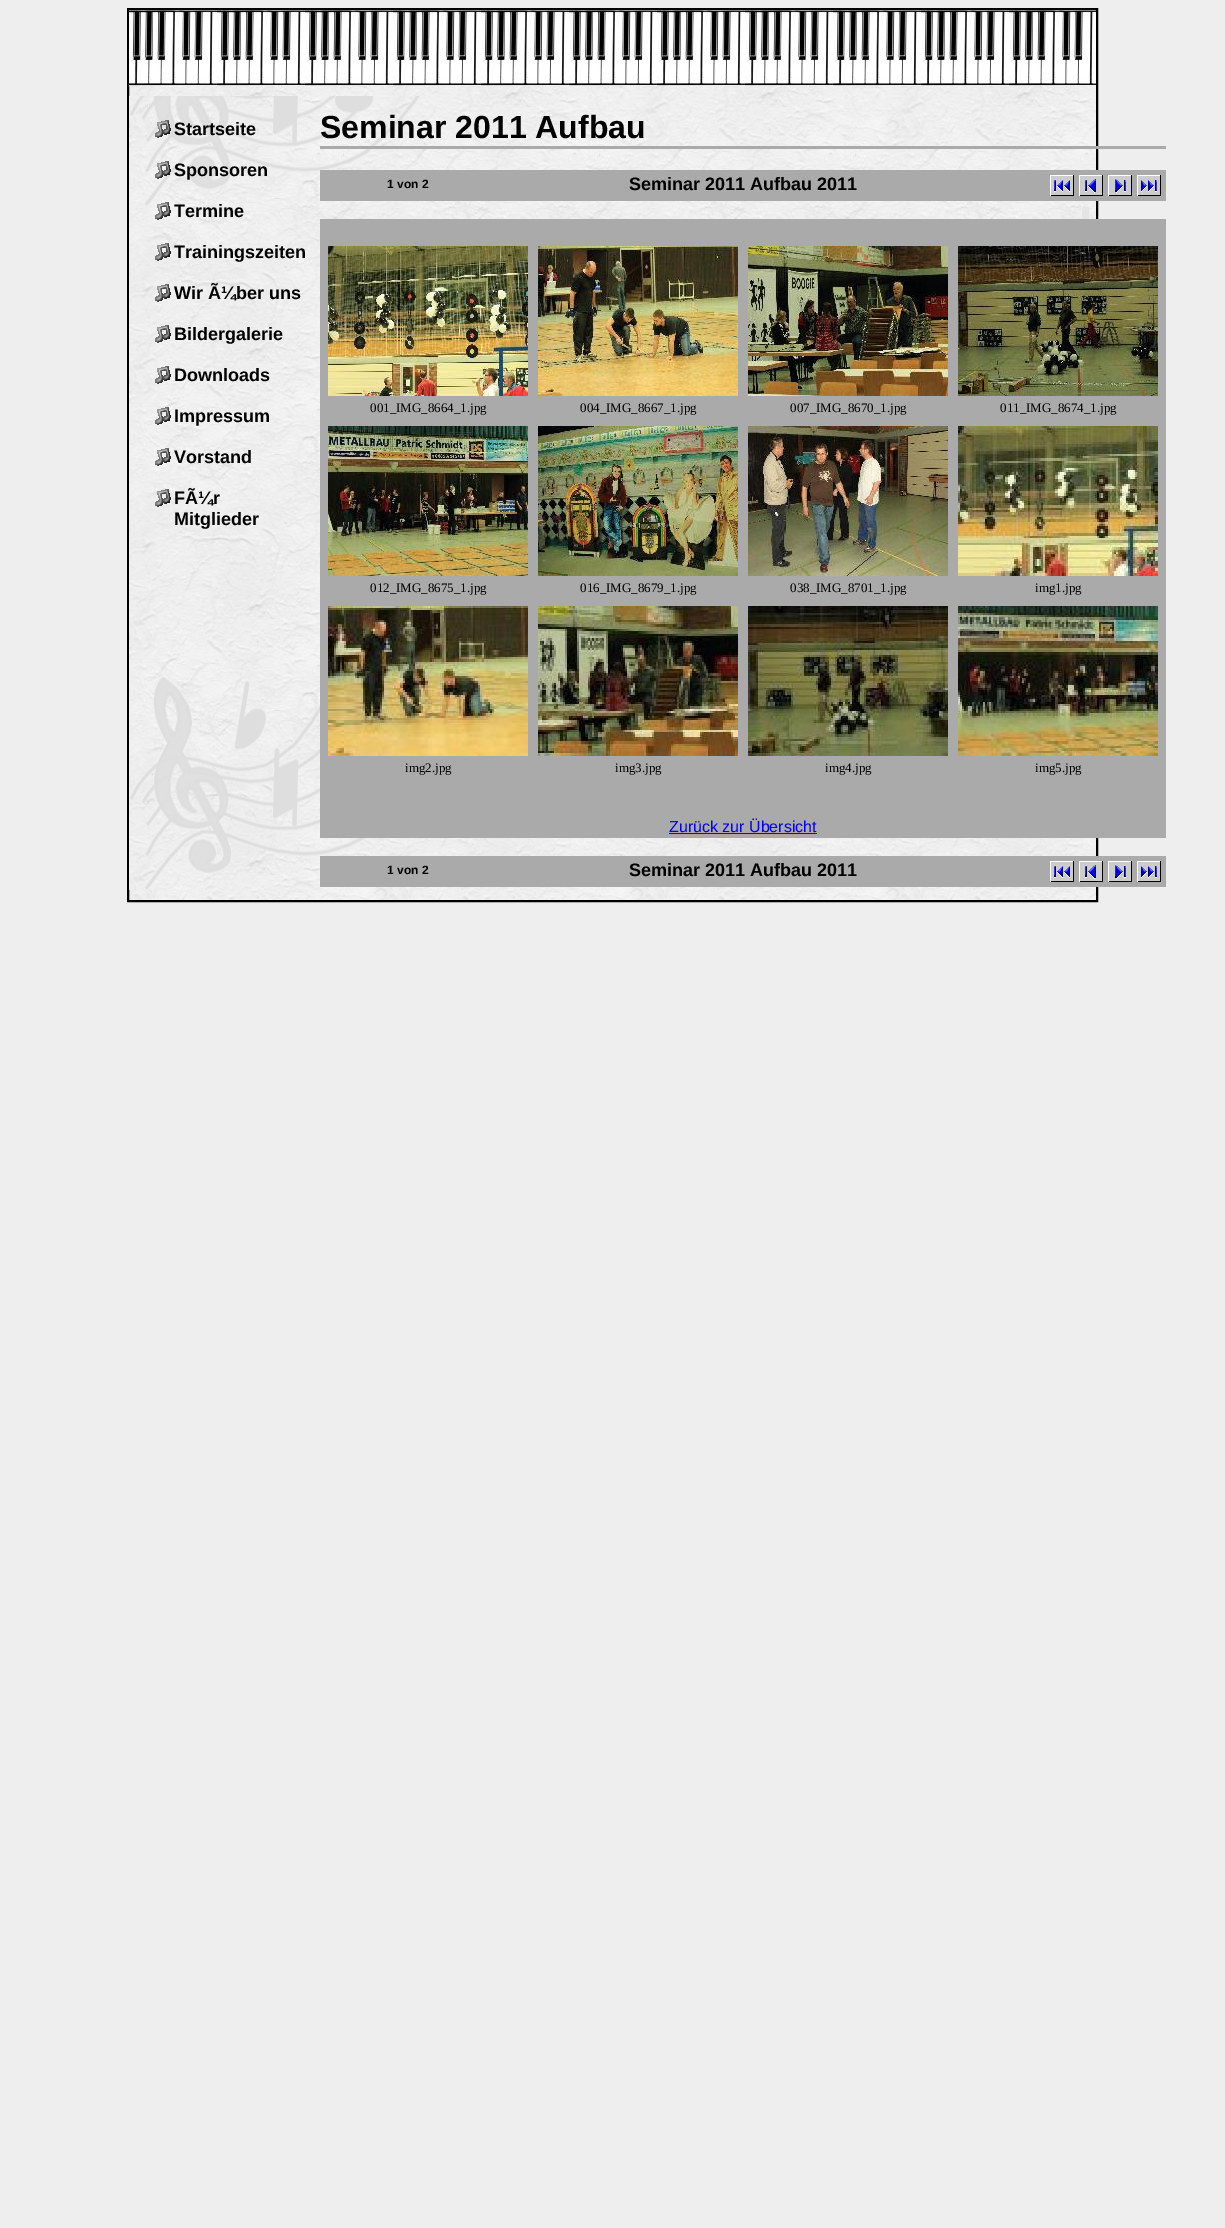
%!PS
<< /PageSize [1225 2228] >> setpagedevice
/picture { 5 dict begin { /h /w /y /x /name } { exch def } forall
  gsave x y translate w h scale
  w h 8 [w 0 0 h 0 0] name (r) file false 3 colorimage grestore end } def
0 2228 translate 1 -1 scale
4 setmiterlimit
0.933 setgray
0 0 1225 2228 rectfill
(img1.rgb) 129 86 967 814 picture
0 setgray
2 setlinewidth
128 9 969 892 rectstroke
(img2.rgb) 129 10 967 76 picture
(img3.rgb) 129 96 962 794 picture
(img4.rgb) 155 120 16 18 picture
/LiberationSans-Bold [18 0 0 -18 0 0] selectfont
174 135 moveto (Startseite) show
(img5.rgb) 155 161 16 18 picture
174 176 moveto (Sponsoren) show
(img6.rgb) 155 202 16 18 picture
174 217 moveto (Termine) show
(img7.rgb) 155 243 16 18 picture
174 258 moveto (Trainingszeiten) show
(img8.rgb) 155 284 16 18 picture
174 299 moveto (Wir Ã¼ber uns) show
(img9.rgb) 155 325 16 18 picture
174 340 moveto (Bildergalerie) show
(img10.rgb) 155 366 16 18 picture
174 381 moveto (Downloads) show
(img11.rgb) 155 407 16 18 picture
174 422 moveto (Impressum) show
(img12.rgb) 155 448 16 18 picture
174 463 moveto (Vorstand) show
(img13.rgb) 155 489 16 18 picture
174 504 moveto (FÃ¼r) show
174 525 moveto (Mitglieder) show
0.667 setgray
320 146 846 3 rectfill
/LiberationSans-Bold [32 0 0 -32 0 0] selectfont
0 setgray
320 138 moveto (Seminar 2011 Aufbau) show
0.667 setgray
320 170 846 31 rectfill
/LiberationSans-Bold [12 0 0 -12 0 0] selectfont
0 setgray
387 188 moveto (1 von 2) show
/LiberationSans-Bold [18 0 0 -18 0 0] selectfont
629 190 moveto (Seminar 2011 Aufbau 2011) show
(img14.rgb) 1050 175 111 21 picture
0.667 setgray
320 219 846 619 rectfill
(img15.rgb) 328 246 200 150 picture
/LiberationSerif-Regular [13 0 0 -13 0 0] selectfont
0 setgray
370 412 moveto (001_IMG_8664_1.jpg) show
(img16.rgb) 538 246 200 150 picture
580 412 moveto (004_IMG_8667_1.jpg) show
(img17.rgb) 748 246 200 150 picture
790 412 moveto (007_IMG_8670_1.jpg) show
(img18.rgb) 958 246 200 150 picture
1000 412 moveto (011_IMG_8674_1.jpg) show
(img19.rgb) 328 426 200 150 picture
370 592 moveto (012_IMG_8675_1.jpg) show
(img20.rgb) 538 426 200 150 picture
580 592 moveto (016_IMG_8679_1.jpg) show
(img21.rgb) 748 426 200 150 picture
790 592 moveto (038_IMG_8701_1.jpg) show
(img22.rgb) 958 426 200 150 picture
1035 592 moveto (img1.jpg) show
(img23.rgb) 328 606 200 150 picture
405 772 moveto (img2.jpg) show
(img24.rgb) 538 606 200 150 picture
615 772 moveto (img3.jpg) show
(img25.rgb) 748 606 200 150 picture
825 772 moveto (img4.jpg) show
(img26.rgb) 958 606 200 150 picture
1035 772 moveto (img5.jpg) show
/LiberationSans-Regular [16 0 0 -16 0 0] selectfont
0 0 0.933 setrgbcolor
669 832 moveto (Zurück zur Übersicht) show
669 833 148 1 rectfill
0.667 setgray
320 856 846 31 rectfill
/LiberationSans-Bold [12 0 0 -12 0 0] selectfont
0 setgray
387 874 moveto (1 von 2) show
/LiberationSans-Bold [18 0 0 -18 0 0] selectfont
629 876 moveto (Seminar 2011 Aufbau 2011) show
(img14.rgb) 1050 861 111 21 picture
showpage
